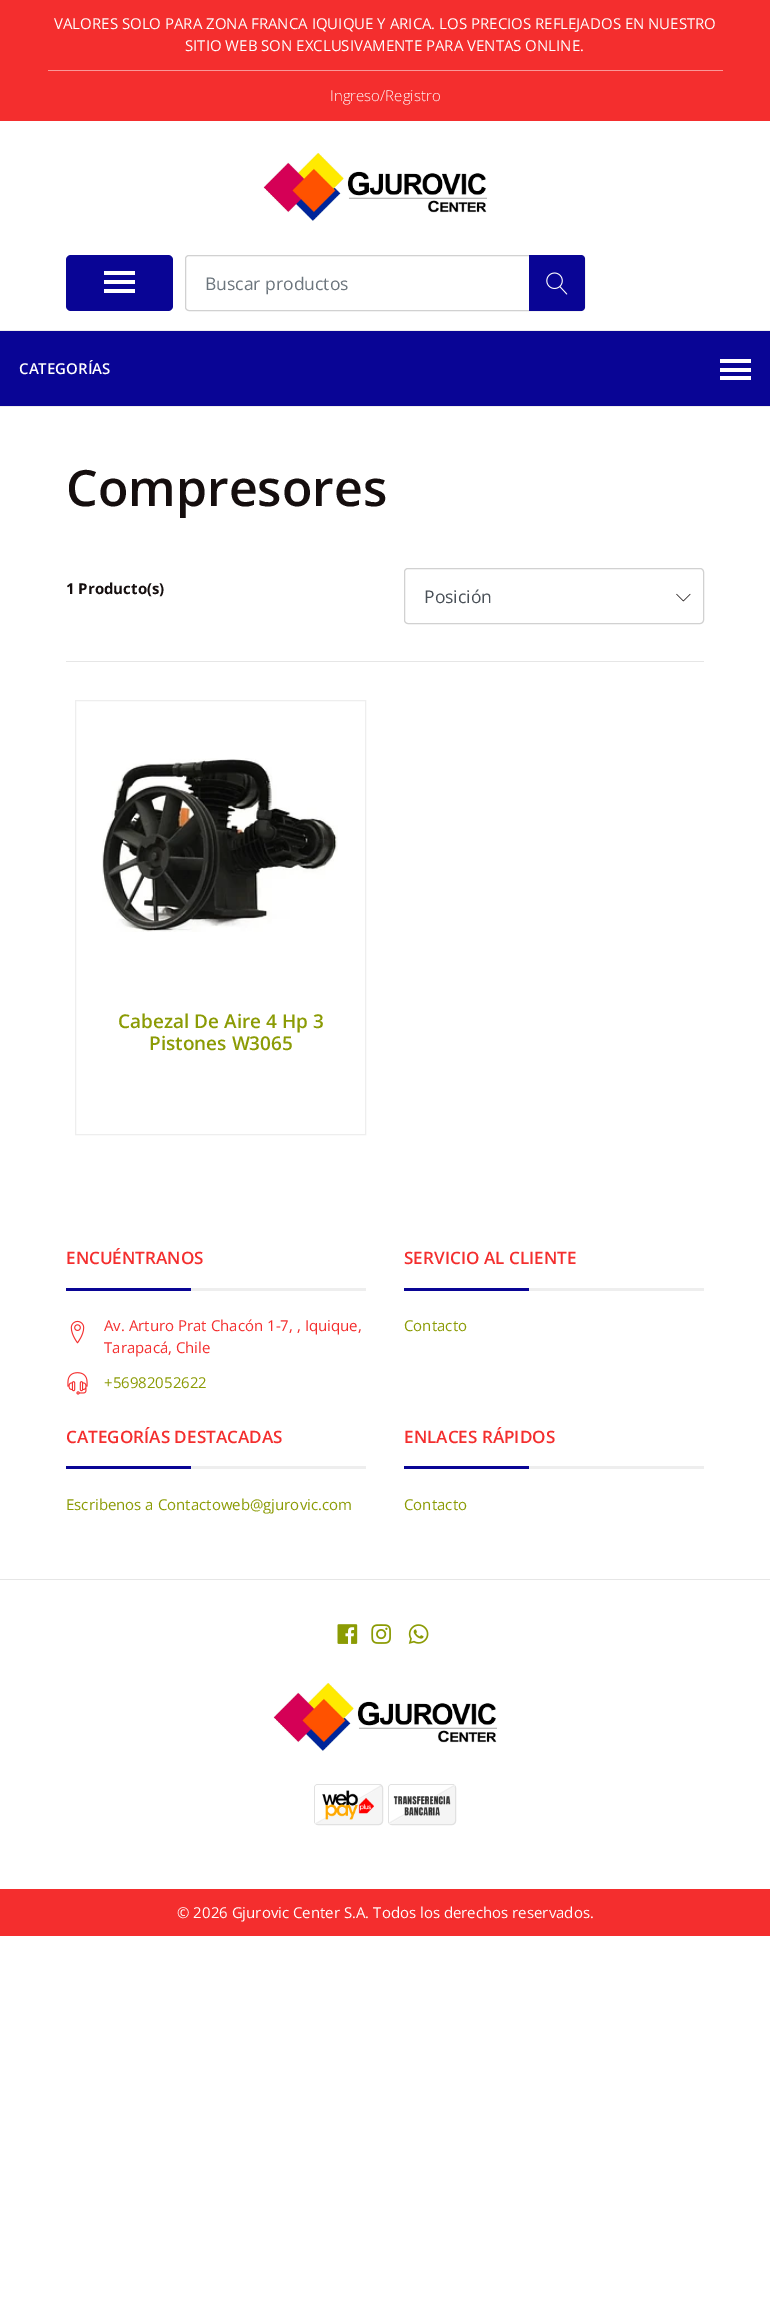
%!PS
<< /PageSize [770 2299] >> setpagedevice
/roundrect { 5 dict begin { /r /h /w /y /x } { exch def } forall
  x r add y moveto x w add y 2 copy h add r arct x w add y h add x 1 index r arct
  x y h add x y r arct x y 2 copy exch w add exch r arct closepath end } def
/picture { 5 dict begin { /h /w /y /x /name } { exch def } forall
  gsave x y translate w h scale
  w h 8 [w 0 0 h 0 0] name (r) file false 3 colorimage grestore end } def
0 2299 translate 1 -1 scale
4 setmiterlimit
1 setgray
0 0 770 2299 rectfill
0.957 0.18 0.18 setrgbcolor
0 0 770 121 rectfill
0.98 0.592 0.592 setrgbcolor
48 70 675 1 rectfill
/OpenSans-Regular [15 0 0 -15 0 0] selectfont
1 setgray
54 29 moveto (VALORES SOLO PARA ZONA FRANCA IQUIQUE Y ARICA. LOS PRECIOS REFLEJADOS EN NUESTRO) show
185 51 moveto (SITIO WEB SON EXCLUSIVAMENTE PARA VENTAS ONLINE.) show
/OpenSans-Light [15 0 0 -15 0 0] selectfont
330 101 moveto (Ingreso/Registro) show
(img1.rgb) 263 153 224 68 picture
0.035 0.02 0.584 setrgbcolor
66 255 107 56 5 roundrect fill
1 setgray
104 271 31 4 rectfill
104 280 31 4 rectfill
104 289 31 4 rectfill
0.82 setgray
185.5 255.5 399 55 3.5 roundrect stroke
/OpenSans-Regular [17.5 0 0 -17.5 0 0] selectfont
0.424 0.459 0.49 setrgbcolor
205 290 moveto (Buscar productos) show
0.035 0.02 0.584 setrgbcolor
newpath 529 255 moveto 581 255 lineto 583 255 585 257 585 259 curveto 585 307 lineto 585 309 583 311 581 311 curveto 529 311 lineto closepath fill
(img2.rgb) 546 272 22 23 picture
0.933 setgray
0 330 770 1 rectfill
0 406 770 1 rectfill
0.035 0.02 0.584 setrgbcolor
0 331 770 75 rectfill
/OpenSans-SemiBold [15 0 0 -15 0 0] selectfont
1 setgray
19 374 moveto (CATEGORÍAS) show
720 359 31 4 rectfill
720 368 31 4 rectfill
720 376 31 4 rectfill
/OpenSans-SemiBold [50 0 0 -50 0 0] selectfont
0.082 0.055 0.055 setrgbcolor
66 506 moveto (Compresores) show
/OpenSans-Bold [15 0 0 -15 0 0] selectfont
66 594 moveto (1 Producto\(s\)) show
(img3.rgb) 676 593 15 9 picture
0.82 setgray
404.5 568.5 299 55 3.5 roundrect stroke
/OpenSans-Regular [17.5 0 0 -17.5 0 0] selectfont
0.286 0.314 0.341 setrgbcolor
424 603 moveto (Posición) show
0.902 setgray
66 661 638 1 rectfill
0.933 setgray
75.5 700.5 290 434 rectstroke
(img4.rgb) 102 758 236 174 picture
/OpenSans-SemiBold [19 0 0 -19 0 0] selectfont
0.545 0.608 0.016 setrgbcolor
118 1028 moveto (Cabezal De Aire 4 Hp 3) show
149 1050 moveto (Pistones W3065) show
0.933 setgray
191 1288 175 3 rectfill
/OpenSans-SemiBold [17.1 0 0 -17.1 0 0] selectfont
0.957 0.18 0.18 setrgbcolor
66 1264 moveto (ENCUÉNTRANOS) show
0.035 0.02 0.584 setrgbcolor
66 1288 125 3 rectfill
(img5.rgb) 70 1320 15 24 picture
/OpenSans-Regular [15 0 0 -15 0 0] selectfont
0.957 0.18 0.18 setrgbcolor
104 1331 moveto (Av. Arturo Prat Chacón 1-7, , Iquique,) show
104 1353 moveto (Tarapacá, Chile) show
(img6.rgb) 67 1372 21 23 picture
0.545 0.608 0.016 setrgbcolor
104 1388 moveto (+56982052622) show
0.933 setgray
529 1288 175 3 rectfill
/OpenSans-SemiBold [17.1 0 0 -17.1 0 0] selectfont
0.957 0.18 0.18 setrgbcolor
404 1264 moveto (SERVICIO AL CLIENTE) show
0.035 0.02 0.584 setrgbcolor
404 1288 125 3 rectfill
/OpenSans-Regular [15 0 0 -15 0 0] selectfont
0.545 0.608 0.016 setrgbcolor
404 1331 moveto (Contacto) show
0.933 setgray
191 1466 175 3 rectfill
/OpenSans-SemiBold [17.1 0 0 -17.1 0 0] selectfont
0.957 0.18 0.18 setrgbcolor
66 1443 moveto (CATEGORÍAS DESTACADAS) show
0.035 0.02 0.584 setrgbcolor
66 1466 125 3 rectfill
/OpenSans-Regular [15 0 0 -15 0 0] selectfont
0.545 0.608 0.016 setrgbcolor
66 1510 moveto (Escribenos a Contactoweb@gjurovic.com) show
0.933 setgray
529 1466 175 3 rectfill
/OpenSans-SemiBold [17.1 0 0 -17.1 0 0] selectfont
0.957 0.18 0.18 setrgbcolor
404 1443 moveto (ENLACES RÁPIDOS) show
0.035 0.02 0.584 setrgbcolor
404 1466 125 3 rectfill
/OpenSans-Regular [15 0 0 -15 0 0] selectfont
0.545 0.608 0.016 setrgbcolor
404 1510 moveto (Contacto) show
0.902 setgray
0 1579 770 1 rectfill
(img7.rgb) 337 1624 21 20 picture
(img8.rgb) 371 1624 20 20 picture
(img9.rgb) 408 1624 21 20 picture
(img10.rgb) 273 1683 224 68 picture
0.961 setgray
314.5 1784.5 68 40 3.5 roundrect gsave fill grestore
0.882 setgray
stroke
1 setgray
newpath 318 1785 moveto 379 1785 lineto 381 1787 lineto 317 1824 lineto 316 1824 315 1823 315 1822 curveto 315 1788 lineto 315 1786 316 1785 318 1785 curveto closepath fill
gsave
315 1785 66 39 2.5 roundrect clip newpath
0.933 setgray
1.2 setlinewidth
newpath 338 1668 moveto 400 1775 lineto 293 1837 lineto 231 1730 lineto closepath stroke
grestore
(img11.rgb) 322 1790 52 30 picture
0.961 setgray
388.5 1784.5 67 40 3.5 roundrect gsave fill grestore
0.882 setgray
stroke
1 setgray
newpath 392 1785 moveto 453 1785 lineto 455 1786 lineto 390 1824 lineto 389 1823 389 1822 389 1822 curveto 389 1788 lineto 389 1786 390 1785 392 1785 curveto closepath fill
gsave
389 1785 66 39 2.5 roundrect clip newpath
0.933 setgray
1.2 setlinewidth
newpath 411 1668 moveto 472.5 1775 lineto 365.5 1837 lineto 303.5 1730 lineto closepath stroke
grestore
(img12.rgb) 393 1795 58 21 picture
0.957 0.18 0.18 setrgbcolor
0 1889 770 47 rectfill
1 setgray
177 1918 moveto (© 2026 Gjurovic Center S.A. Todos los derechos reservados.) show
showpage
